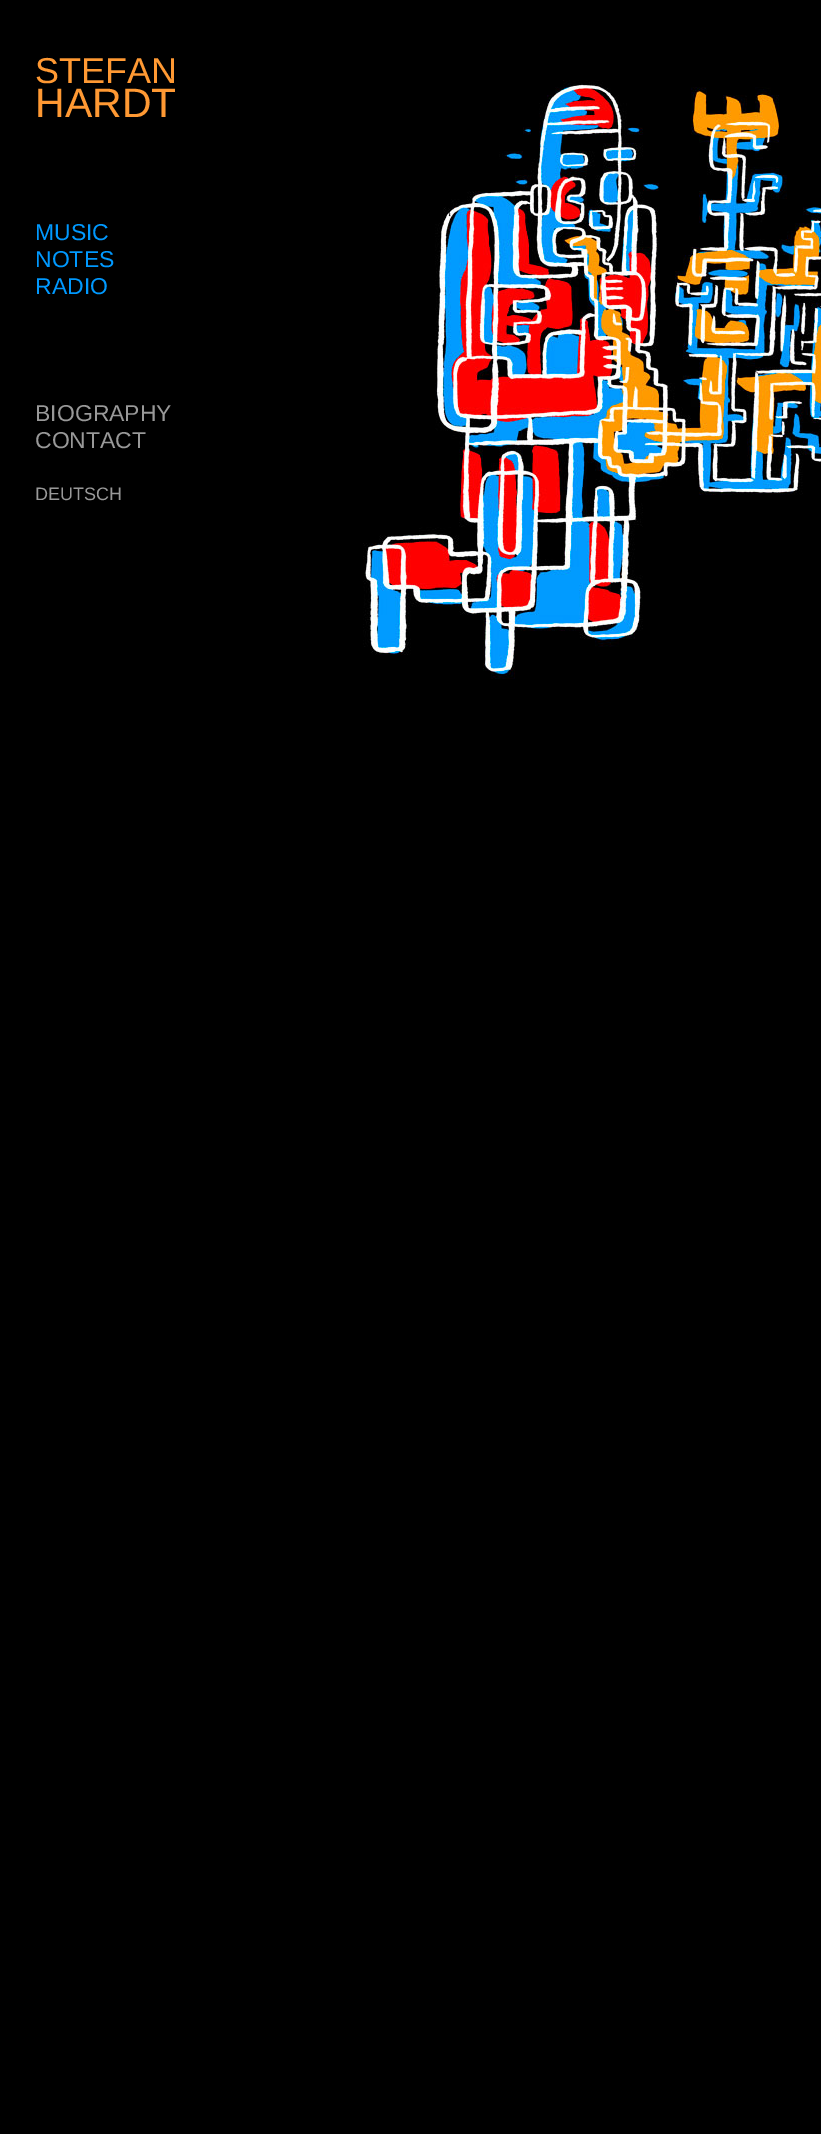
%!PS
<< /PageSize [821 2134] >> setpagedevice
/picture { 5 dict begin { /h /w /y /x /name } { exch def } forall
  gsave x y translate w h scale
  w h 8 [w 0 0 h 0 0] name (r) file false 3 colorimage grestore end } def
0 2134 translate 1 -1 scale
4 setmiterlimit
0 setgray
0 0 821 2134 rectfill
/LiberationSans-Regular [36 0 0 -36 0 0] selectfont
1 0.6 0.2 setrgbcolor
35 83 moveto (STEFAN) show
/LiberationSans-Regular [41 0 0 -41 0 0] selectfont
35 117 moveto (HARDT) show
/LiberationSans-Regular [23 0 0 -23 0 0] selectfont
0 0.6 1 setrgbcolor
35 240 moveto (MUSIC) show
35 267 moveto (NOTES) show
35 294 moveto (RADIO) show
0.6 setgray
35 421 moveto (BIOGRAPHY) show
35 448 moveto (CONTACT) show
/LiberationSans-Regular [18 0 0 -18 0 0] selectfont
35 500 moveto (DEUTSCH) show
(img1.rgb) 363 80 458 599 picture
showpage
